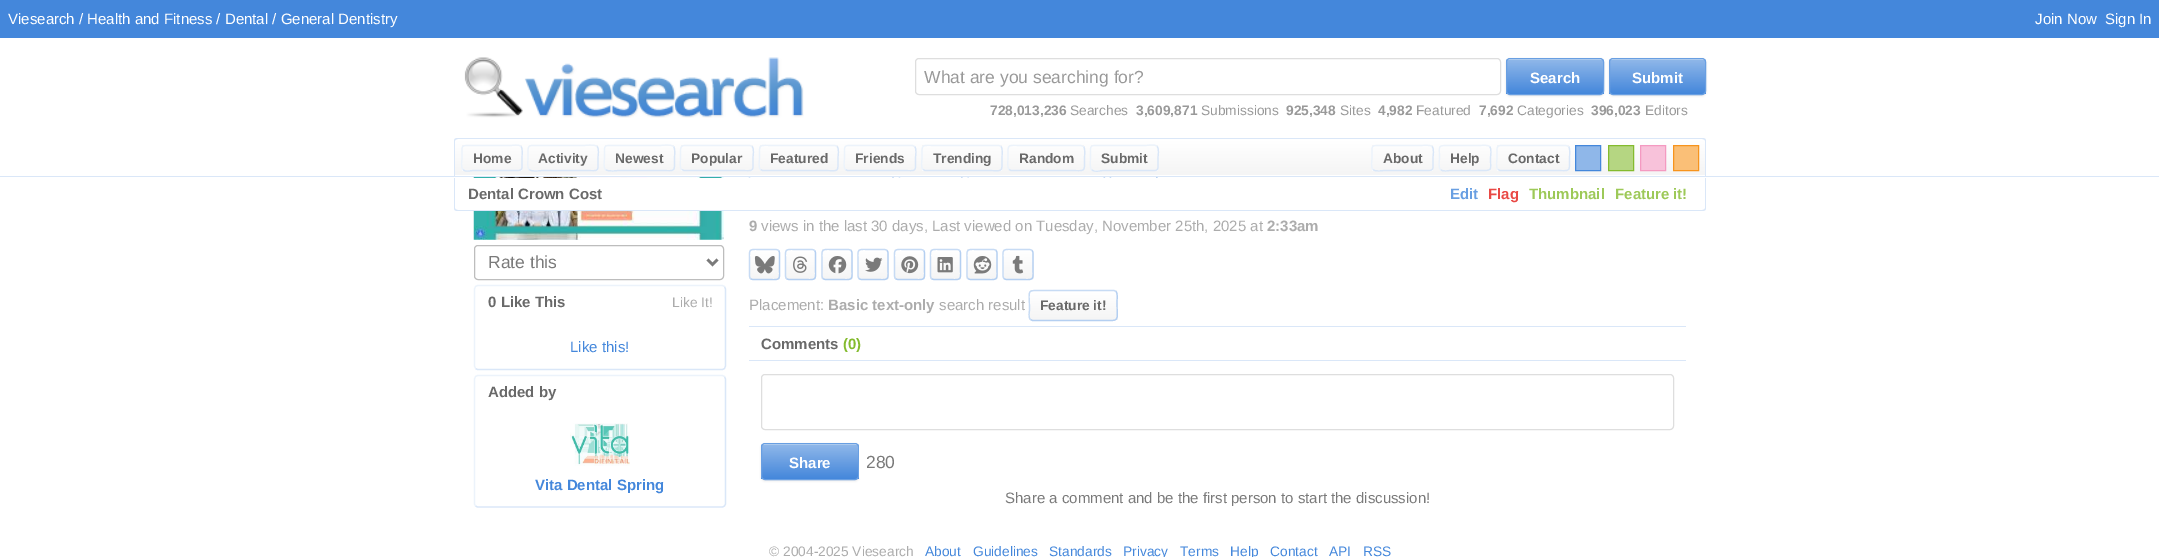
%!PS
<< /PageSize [2159 557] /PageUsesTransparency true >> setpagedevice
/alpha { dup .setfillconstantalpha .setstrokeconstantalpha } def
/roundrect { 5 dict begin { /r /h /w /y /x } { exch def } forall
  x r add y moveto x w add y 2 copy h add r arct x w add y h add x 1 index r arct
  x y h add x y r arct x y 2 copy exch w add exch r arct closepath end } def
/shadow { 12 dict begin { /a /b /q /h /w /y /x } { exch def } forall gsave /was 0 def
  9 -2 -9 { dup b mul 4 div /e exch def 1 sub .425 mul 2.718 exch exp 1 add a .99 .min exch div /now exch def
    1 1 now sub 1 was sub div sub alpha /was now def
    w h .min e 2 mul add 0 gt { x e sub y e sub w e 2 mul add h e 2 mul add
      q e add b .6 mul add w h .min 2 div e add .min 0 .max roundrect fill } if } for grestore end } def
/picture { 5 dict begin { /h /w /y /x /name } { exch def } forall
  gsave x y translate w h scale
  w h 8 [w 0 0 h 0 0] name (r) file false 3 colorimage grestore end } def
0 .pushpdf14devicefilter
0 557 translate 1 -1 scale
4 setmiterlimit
1 setgray
0 0 2159 557 rectfill
0.78 0.859 0.957 setrgbcolor
1.2 setlinewidth
newpath 892 175.5 moveto 894.5 177.5 893 186.5 893 189.5 curveto 893 197.5 lineto 893 199.5 894 204.5 890 204.5 curveto 752.5 204.5 lineto 750.5 203.5 lineto stroke
0.855 0.906 0.973 setrgbcolor
newpath 750.5 203.5 moveto 748 201.5 749.5 192 749.5 189.5 curveto 749.5 181.5 lineto 749.5 179 748.5 174.5 752.5 174.5 curveto 890 174.5 lineto 892 175.5 lineto stroke
0.78 0.859 0.957 setrgbcolor
newpath 961 175.5 moveto 963 177.5 962 186.5 962 189.5 curveto 962 205.5 965 204.5 949.5 204.5 curveto 912 204.5 lineto 911 204.5 902.5 206 900.5 203.5 curveto stroke
0.855 0.906 0.973 setrgbcolor
newpath 900.5 203.5 moveto 898 201.5 899.5 192 899.5 189.5 curveto 899.5 173 896.5 174.5 912 174.5 curveto 949.5 174.5 lineto 950.5 174.5 958.5 173 961 175.5 curveto stroke
0.78 0.859 0.957 setrgbcolor
newpath 1103.5 175.5 moveto 1105.5 177.5 1104.5 186.5 1104.5 189.5 curveto 1104.5 197.5 lineto 1104.5 199.5 1105 204.5 1101 204.5 curveto 971 204.5 lineto 969 203.5 lineto stroke
0.855 0.906 0.973 setrgbcolor
newpath 969 203.5 moveto 967 201.5 968 192 968 189.5 curveto 968 181.5 lineto 968 179 967.5 174.5 971 174.5 curveto 1101 174.5 lineto 1103.5 175.5 lineto stroke
0.706 0.812 0.945 setrgbcolor
newpath 1156 175.5 moveto 1158 177.5 1157 186.5 1157 189.5 curveto 1157 203.5 1160 204.5 1147 204.5 curveto 1120.5 204.5 lineto 1119.5 204.5 1113.5 205.5 1111.5 203.5 curveto stroke
0.78 0.859 0.957 setrgbcolor
newpath 1111.5 203.5 moveto 1109.5 201.5 1110.5 192 1110.5 189.5 curveto 1110.5 175 1107.5 174.5 1120.5 174.5 curveto 1147 174.5 lineto 1148 174.5 1154 173.5 1156 175.5 curveto stroke
1 setgray
749 173 408 3 rectfill
0.267 0.529 0.859 setrgbcolor
0 0 2159 38 rectfill
/LiberationSans-Regular [15 0 0 -15 0 0] selectfont
1 setgray
8 24 moveto (Viesearch / Health and Fitness / Dental / General Dentistry) show
2035 24 moveto (Join Now) show
2105 24 moveto (Sign In) show
(img1.rgb) 464 57 340 61 picture
0.871 setgray
1 setlinewidth
915.5 58.5 585 36 3.5 roundrect stroke
/LiberationSans-Regular [17.5 0 0 -17.5 0 0] selectfont
0.6 setgray
924 83 moveto (What are you searching for?) show
0 setgray
1506 59 98 37 4 1 0.1 shadow
gsave
1506 58 98 37 4 roundrect clip newpath
gsave newpath 1506 59 moveto 1604 59 lineto 1604 94 lineto 1506 94 lineto closepath clip newpath
<< /ShadingType 2 /ColorSpace /DeviceRGB /Coords [1603 59 1603 94] /Extend [true true] /Function << /FunctionType 3 /Domain [0 1] /Functions [<< /FunctionType 2 /Domain [0 1] /C0 [0.925 0.953 0.984] /C1 [0.925 0.953 0.984] /N 1 >> << /FunctionType 2 /Domain [0 1] /C0 [0.925 0.953 0.984] /C1 [0.561 0.718 0.914] /N 1 >> << /FunctionType 2 /Domain [0 1] /C0 [0.561 0.718 0.914] /C1 [0.267 0.529 0.859] /N 1 >>] /Bounds [0.01 0.02] /Encode [0 1 0 1 0 1] >> >> shfill grestore
grestore
0.412 0.624 0.886 setrgbcolor
1506.5 58.5 97 36 3.5 roundrect stroke
/LiberationSans-Bold [15 0 0 -15 0 0] selectfont
1 setgray
1530 83 moveto (Search) show
0 setgray
1609 59 97 37 4 1 0.1 shadow
gsave
1609 58 97 37 4 roundrect clip newpath
gsave newpath 1609 59 moveto 1706 59 lineto 1706 94 lineto 1609 94 lineto closepath clip newpath
<< /ShadingType 2 /ColorSpace /DeviceRGB /Coords [1705 59 1705 94] /Extend [true true] /Function << /FunctionType 3 /Domain [0 1] /Functions [<< /FunctionType 2 /Domain [0 1] /C0 [0.925 0.953 0.984] /C1 [0.925 0.953 0.984] /N 1 >> << /FunctionType 2 /Domain [0 1] /C0 [0.925 0.953 0.984] /C1 [0.561 0.718 0.914] /N 1 >> << /FunctionType 2 /Domain [0 1] /C0 [0.561 0.718 0.914] /C1 [0.267 0.529 0.859] /N 1 >>] /Bounds [0.01 0.02] /Encode [0 1 0 1 0 1] >> >> shfill grestore
grestore
0.412 0.624 0.886 setrgbcolor
1609.5 58.5 96 36 3.5 roundrect stroke
1 setgray
1632 83 moveto (Submit) show
/LiberationSans-Bold [13.75 0 0 -13.75 0 0] selectfont
0.6 setgray
990 115 moveto (728,013,236) show
/LiberationSans-Regular [13.75 0 0 -13.75 0 0] selectfont
1070 115 moveto (Searches) show
/LiberationSans-Bold [13.75 0 0 -13.75 0 0] selectfont
1136 115 moveto (3,609,871) show
/LiberationSans-Regular [13.75 0 0 -13.75 0 0] selectfont
1201 115 moveto (Submissions) show
/LiberationSans-Bold [13.75 0 0 -13.75 0 0] selectfont
1286 115 moveto (925,348) show
/LiberationSans-Regular [13.75 0 0 -13.75 0 0] selectfont
1340 115 moveto (Sites) show
/LiberationSans-Bold [13.75 0 0 -13.75 0 0] selectfont
1378 115 moveto (4,982) show
/LiberationSans-Regular [13.75 0 0 -13.75 0 0] selectfont
1416 115 moveto (Featured) show
/LiberationSans-Bold [13.75 0 0 -13.75 0 0] selectfont
1479 115 moveto (7,692) show
/LiberationSans-Regular [13.75 0 0 -13.75 0 0] selectfont
1517 115 moveto (Categories) show
/LiberationSans-Bold [13.75 0 0 -13.75 0 0] selectfont
1591 115 moveto (396,023) show
/LiberationSans-Regular [13.75 0 0 -13.75 0 0] selectfont
1645 115 moveto (Editors) show
0.855 0.906 0.973 setrgbcolor
0 176 2159 1 rectfill
gsave
newpath 458 138 moveto 1702 138 lineto 1704 138 1706 140 1706 142 curveto 1706 176 lineto 454 176 lineto 454 142 lineto 454 140 456 138 458 138 curveto closepath clip newpath
gsave newpath 454 139 moveto 1706 139 lineto 1706 176 lineto 454 176 lineto closepath clip newpath
<< /ShadingType 2 /ColorSpace /DeviceRGB /Coords [1705 139 1705 176] /Extend [true true] /Function << /FunctionType 3 /Domain [0 1] /Functions [<< /FunctionType 2 /Domain [0 1] /C0 [1 1 1] /C1 [1 1 1] /N 1 >> << /FunctionType 2 /Domain [0 1] /C0 [1 1 1] /C1 [1 1 1] /N 1 >> << /FunctionType 2 /Domain [0 1] /C0 [1 1 1] /C1 [0.961 0.961 0.961] /N 1 >> << /FunctionType 2 /Domain [0 1] /C0 [0.961 0.961 0.961] /C1 [1 1 1] /N 1 >>] /Bounds [0.01 0.02 0.98] /Encode [0 1 0 1 0 1 0 1] >> >> shfill grestore
grestore
newpath 458 138 moveto 1702 138 lineto 1705 138 1706 139 1706 141 curveto 1706 176 lineto 454 176 lineto 454 141 lineto 454 139 455 138 458 138 curveto closepath 458 139 moveto 1702 139 lineto 1704 139 1705 140 1705 141 curveto 1705 176 lineto 455 176 lineto 455 141 lineto 455 140 456 139 458 139 curveto closepath eofill
gsave
461 145 62 26 4 roundrect clip newpath
gsave newpath 461 145 moveto 523 145 lineto 523 146 lineto 461 146 lineto closepath clip newpath
<< /ShadingType 2 /ColorSpace /DeviceRGB /Coords [521 123 521 146] /Extend [true true] /Function << /FunctionType 3 /Domain [0 1] /Functions [<< /FunctionType 2 /Domain [0 1] /C0 [1 1 1] /C1 [1 1 1] /N 1 >> << /FunctionType 2 /Domain [0 1] /C0 [1 1 1] /C1 [1 1 1] /N 1 >> << /FunctionType 2 /Domain [0 1] /C0 [1 1 1] /C1 [0.961 0.961 0.961] /N 1 >>] /Bounds [0.01 0.02] /Encode [0 1 0 1 0 1] >> >> shfill grestore
gsave newpath 461 170 moveto 523 170 lineto 523 171 lineto 461 171 lineto closepath clip newpath
<< /ShadingType 2 /ColorSpace /DeviceRGB /Coords [521 170 521 194] /Extend [true true] /Function << /FunctionType 3 /Domain [0 1] /Functions [<< /FunctionType 2 /Domain [0 1] /C0 [1 1 1] /C1 [1 1 1] /N 1 >> << /FunctionType 2 /Domain [0 1] /C0 [1 1 1] /C1 [1 1 1] /N 1 >> << /FunctionType 2 /Domain [0 1] /C0 [1 1 1] /C1 [0.961 0.961 0.961] /N 1 >>] /Bounds [0.01 0.02] /Encode [0 1 0 1 0 1] >> >> shfill grestore
grestore
1.2 setlinewidth
newpath 521 146.5 moveto 523 148.5 522 155.5 522 158 curveto 522 172 524 170.5 510 170.5 curveto 474 170.5 lineto 470 170.5 465.5 172.5 463 169.5 curveto stroke
0.925 0.953 0.984 setrgbcolor
newpath 463 169.5 moveto 460.5 167.5 462 160.5 462 158 curveto 462 144 460 145.5 474 145.5 curveto 510 145.5 lineto 513.5 145.5 518.5 144 521 146.5 curveto stroke
/LiberationSans-Bold [13.75 0 0 -13.75 0 0] selectfont
0.412 setgray
473 163 moveto (Home) show
gsave
528 145 71 26 4 roundrect clip newpath
gsave newpath 528 145 moveto 599 145 lineto 599 146 lineto 528 146 lineto closepath clip newpath
<< /ShadingType 2 /ColorSpace /DeviceRGB /Coords [598 123 598 146] /Extend [true true] /Function << /FunctionType 3 /Domain [0 1] /Functions [<< /FunctionType 2 /Domain [0 1] /C0 [1 1 1] /C1 [1 1 1] /N 1 >> << /FunctionType 2 /Domain [0 1] /C0 [1 1 1] /C1 [1 1 1] /N 1 >> << /FunctionType 2 /Domain [0 1] /C0 [1 1 1] /C1 [0.961 0.961 0.961] /N 1 >>] /Bounds [0.01 0.02] /Encode [0 1 0 1 0 1] >> >> shfill grestore
gsave newpath 528 170 moveto 599 170 lineto 599 171 lineto 528 171 lineto closepath clip newpath
<< /ShadingType 2 /ColorSpace /DeviceRGB /Coords [598 170 598 194] /Extend [true true] /Function << /FunctionType 3 /Domain [0 1] /Functions [<< /FunctionType 2 /Domain [0 1] /C0 [1 1 1] /C1 [1 1 1] /N 1 >> << /FunctionType 2 /Domain [0 1] /C0 [1 1 1] /C1 [1 1 1] /N 1 >> << /FunctionType 2 /Domain [0 1] /C0 [1 1 1] /C1 [0.961 0.961 0.961] /N 1 >>] /Bounds [0.01 0.02] /Encode [0 1 0 1 0 1] >> >> shfill grestore
grestore
0.855 0.906 0.973 setrgbcolor
newpath 597 146.5 moveto 599.5 148.5 598 155.5 598 158 curveto 598 173 600 170.5 584.5 170.5 curveto 542 170.5 lineto 542 170.5 531.5 172 529 169.5 curveto stroke
0.925 0.953 0.984 setrgbcolor
newpath 529 169.5 moveto 527 167.5 528 160.5 528 158 curveto 528 143.5 526.5 145.5 542 145.5 curveto 584.5 145.5 lineto 584.5 145.5 594.5 144 597 146.5 curveto stroke
0.412 setgray
538 163 moveto (Activity) show
gsave
604 145 71 26 4 roundrect clip newpath
gsave newpath 604 145 moveto 675 145 lineto 675 146 lineto 604 146 lineto closepath clip newpath
<< /ShadingType 2 /ColorSpace /DeviceRGB /Coords [674 123 674 146] /Extend [true true] /Function << /FunctionType 3 /Domain [0 1] /Functions [<< /FunctionType 2 /Domain [0 1] /C0 [1 1 1] /C1 [1 1 1] /N 1 >> << /FunctionType 2 /Domain [0 1] /C0 [1 1 1] /C1 [1 1 1] /N 1 >> << /FunctionType 2 /Domain [0 1] /C0 [1 1 1] /C1 [0.961 0.961 0.961] /N 1 >>] /Bounds [0.01 0.02] /Encode [0 1 0 1 0 1] >> >> shfill grestore
gsave newpath 604 170 moveto 675 170 lineto 675 171 lineto 604 171 lineto closepath clip newpath
<< /ShadingType 2 /ColorSpace /DeviceRGB /Coords [674 170 674 194] /Extend [true true] /Function << /FunctionType 3 /Domain [0 1] /Functions [<< /FunctionType 2 /Domain [0 1] /C0 [1 1 1] /C1 [1 1 1] /N 1 >> << /FunctionType 2 /Domain [0 1] /C0 [1 1 1] /C1 [1 1 1] /N 1 >> << /FunctionType 2 /Domain [0 1] /C0 [1 1 1] /C1 [0.961 0.961 0.961] /N 1 >>] /Bounds [0.01 0.02] /Encode [0 1 0 1 0 1] >> >> shfill grestore
grestore
0.855 0.906 0.973 setrgbcolor
newpath 673.5 146.5 moveto 675.5 148.5 674.5 155.5 674.5 158 curveto 674.5 173 676 170.5 660.5 170.5 curveto 618 170.5 lineto 618 170.5 608 172 605.5 169.5 curveto stroke
0.925 0.953 0.984 setrgbcolor
newpath 605.5 169.5 moveto 603 167.5 604.5 160.5 604.5 158 curveto 604.5 143.5 602.5 145.5 618 145.5 curveto 660.5 145.5 lineto 660.5 145.5 671 144 673.5 146.5 curveto stroke
0.412 setgray
615 163 moveto (Newest) show
gsave
680 145 74 26 4 roundrect clip newpath
gsave newpath 680 145 moveto 754 145 lineto 754 146 lineto 680 146 lineto closepath clip newpath
<< /ShadingType 2 /ColorSpace /DeviceRGB /Coords [753 123 753 146] /Extend [true true] /Function << /FunctionType 3 /Domain [0 1] /Functions [<< /FunctionType 2 /Domain [0 1] /C0 [1 1 1] /C1 [1 1 1] /N 1 >> << /FunctionType 2 /Domain [0 1] /C0 [1 1 1] /C1 [1 1 1] /N 1 >> << /FunctionType 2 /Domain [0 1] /C0 [1 1 1] /C1 [0.961 0.961 0.961] /N 1 >>] /Bounds [0.01 0.02] /Encode [0 1 0 1 0 1] >> >> shfill grestore
gsave newpath 680 170 moveto 754 170 lineto 754 171 lineto 680 171 lineto closepath clip newpath
<< /ShadingType 2 /ColorSpace /DeviceRGB /Coords [753 170 753 194] /Extend [true true] /Function << /FunctionType 3 /Domain [0 1] /Functions [<< /FunctionType 2 /Domain [0 1] /C0 [1 1 1] /C1 [1 1 1] /N 1 >> << /FunctionType 2 /Domain [0 1] /C0 [1 1 1] /C1 [1 1 1] /N 1 >> << /FunctionType 2 /Domain [0 1] /C0 [1 1 1] /C1 [0.961 0.961 0.961] /N 1 >>] /Bounds [0.01 0.02] /Encode [0 1 0 1 0 1] >> >> shfill grestore
grestore
0.855 0.906 0.973 setrgbcolor
newpath 752 146.5 moveto 754.5 148.5 753 155.5 753 158 curveto 753 173 755 170.5 739 170.5 curveto 684 170.5 lineto 681.5 169.5 lineto stroke
0.925 0.953 0.984 setrgbcolor
newpath 681.5 169.5 moveto 679.5 167.5 680.5 160.5 680.5 158 curveto 680.5 143.5 679 145.5 695 145.5 curveto 750 145.5 lineto 752 146.5 lineto stroke
0.412 setgray
691 163 moveto (Popular) show
gsave
759 145 80 26 4 roundrect clip newpath
gsave newpath 759 145 moveto 839 145 lineto 839 146 lineto 759 146 lineto closepath clip newpath
<< /ShadingType 2 /ColorSpace /DeviceRGB /Coords [838 123 838 146] /Extend [true true] /Function << /FunctionType 3 /Domain [0 1] /Functions [<< /FunctionType 2 /Domain [0 1] /C0 [1 1 1] /C1 [1 1 1] /N 1 >> << /FunctionType 2 /Domain [0 1] /C0 [1 1 1] /C1 [1 1 1] /N 1 >> << /FunctionType 2 /Domain [0 1] /C0 [1 1 1] /C1 [0.961 0.961 0.961] /N 1 >>] /Bounds [0.01 0.02] /Encode [0 1 0 1 0 1] >> >> shfill grestore
grestore
0.855 0.906 0.973 setrgbcolor
newpath 837 146.5 moveto 839.5 148.5 838 155.5 838 158 curveto 838 173.5 839.5 170.5 823 170.5 curveto 762.5 170.5 lineto 760.5 169.5 lineto stroke
0.925 0.953 0.984 setrgbcolor
newpath 760.5 169.5 moveto 758 167.5 759.5 160.5 759.5 158 curveto 759.5 143 758 145.5 774.5 145.5 curveto 835 145.5 lineto 837 146.5 lineto stroke
0.412 setgray
770 163 moveto (Featured) show
0.855 0.906 0.973 setrgbcolor
newpath 914.5 146.5 moveto 917 148.5 915.5 155.5 915.5 158 curveto 915.5 173 917.5 170.5 901.5 170.5 curveto 847.5 170.5 lineto 845.5 169.5 lineto stroke
0.925 0.953 0.984 setrgbcolor
newpath 845.5 169.5 moveto 843 167.5 844.5 160.5 844.5 158 curveto 844.5 143.5 842.5 145.5 858.5 145.5 curveto 912.5 145.5 lineto 914.5 146.5 lineto stroke
0.412 setgray
855 163 moveto (Friends) show
gsave
921 145 82 26 4 roundrect clip newpath
gsave newpath 921 145 moveto 1003 145 lineto 1003 146 lineto 921 146 lineto closepath clip newpath
<< /ShadingType 2 /ColorSpace /DeviceRGB /Coords [1001 123 1001 146] /Extend [true true] /Function << /FunctionType 3 /Domain [0 1] /Functions [<< /FunctionType 2 /Domain [0 1] /C0 [1 1 1] /C1 [1 1 1] /N 1 >> << /FunctionType 2 /Domain [0 1] /C0 [1 1 1] /C1 [1 1 1] /N 1 >> << /FunctionType 2 /Domain [0 1] /C0 [1 1 1] /C1 [0.961 0.961 0.961] /N 1 >>] /Bounds [0.01 0.02] /Encode [0 1 0 1 0 1] >> >> shfill grestore
gsave newpath 921 170 moveto 1003 170 lineto 1003 171 lineto 921 171 lineto closepath clip newpath
<< /ShadingType 2 /ColorSpace /DeviceRGB /Coords [1001 170 1001 194] /Extend [true true] /Function << /FunctionType 3 /Domain [0 1] /Functions [<< /FunctionType 2 /Domain [0 1] /C0 [1 1 1] /C1 [1 1 1] /N 1 >> << /FunctionType 2 /Domain [0 1] /C0 [1 1 1] /C1 [1 1 1] /N 1 >> << /FunctionType 2 /Domain [0 1] /C0 [1 1 1] /C1 [0.961 0.961 0.961] /N 1 >>] /Bounds [0.01 0.02] /Encode [0 1 0 1 0 1] >> >> shfill grestore
grestore
0.855 0.906 0.973 setrgbcolor
newpath 1001 146.5 moveto 1003 148.5 1002 155.5 1002 158 curveto 1002 173.5 1003.5 170.5 986.5 170.5 curveto 925 170.5 lineto 923 169.5 lineto stroke
0.925 0.953 0.984 setrgbcolor
newpath 923 169.5 moveto 920.5 167.5 922 160.5 922 158 curveto 922 143 920.5 145.5 937.5 145.5 curveto 999 145.5 lineto 1001 146.5 lineto stroke
0.412 setgray
933 163 moveto (Trending) show
gsave
1008 145 77 26 4 roundrect clip newpath
gsave newpath 1008 145 moveto 1085 145 lineto 1085 146 lineto 1008 146 lineto closepath clip newpath
<< /ShadingType 2 /ColorSpace /DeviceRGB /Coords [1084 123 1084 146] /Extend [true true] /Function << /FunctionType 3 /Domain [0 1] /Functions [<< /FunctionType 2 /Domain [0 1] /C0 [1 1 1] /C1 [1 1 1] /N 1 >> << /FunctionType 2 /Domain [0 1] /C0 [1 1 1] /C1 [1 1 1] /N 1 >> << /FunctionType 2 /Domain [0 1] /C0 [1 1 1] /C1 [0.961 0.961 0.961] /N 1 >>] /Bounds [0.01 0.02] /Encode [0 1 0 1 0 1] >> >> shfill grestore
grestore
0.855 0.906 0.973 setrgbcolor
newpath 1083.5 146.5 moveto 1085.5 148.5 1084.5 155.5 1084.5 158 curveto 1084.5 173 1086 170.5 1069.5 170.5 curveto 1011 170.5 lineto 1009 169.5 lineto stroke
0.925 0.953 0.984 setrgbcolor
newpath 1009 169.5 moveto 1007 167.5 1008 160.5 1008 158 curveto 1008 143 1006.5 145.5 1023 145.5 curveto 1081 145.5 lineto 1083.5 146.5 lineto stroke
0.412 setgray
1019 163 moveto (Random) show
gsave
1090 145 69 26 4 roundrect clip newpath
gsave newpath 1090 145 moveto 1159 145 lineto 1159 146 lineto 1090 146 lineto closepath clip newpath
<< /ShadingType 2 /ColorSpace /DeviceRGB /Coords [1158 123 1158 146] /Extend [true true] /Function << /FunctionType 3 /Domain [0 1] /Functions [<< /FunctionType 2 /Domain [0 1] /C0 [1 1 1] /C1 [1 1 1] /N 1 >> << /FunctionType 2 /Domain [0 1] /C0 [1 1 1] /C1 [1 1 1] /N 1 >> << /FunctionType 2 /Domain [0 1] /C0 [1 1 1] /C1 [0.961 0.961 0.961] /N 1 >>] /Bounds [0.01 0.02] /Encode [0 1 0 1 0 1] >> >> shfill grestore
gsave newpath 1090 170 moveto 1159 170 lineto 1159 171 lineto 1090 171 lineto closepath clip newpath
<< /ShadingType 2 /ColorSpace /DeviceRGB /Coords [1158 170 1158 194] /Extend [true true] /Function << /FunctionType 3 /Domain [0 1] /Functions [<< /FunctionType 2 /Domain [0 1] /C0 [1 1 1] /C1 [1 1 1] /N 1 >> << /FunctionType 2 /Domain [0 1] /C0 [1 1 1] /C1 [1 1 1] /N 1 >> << /FunctionType 2 /Domain [0 1] /C0 [1 1 1] /C1 [0.961 0.961 0.961] /N 1 >>] /Bounds [0.01 0.02] /Encode [0 1 0 1 0 1] >> >> shfill grestore
grestore
0.855 0.906 0.973 setrgbcolor
newpath 1157 146.5 moveto 1159.5 148.5 1158 155.5 1158 158 curveto 1158 172.5 1160 170.5 1145 170.5 curveto 1104 170.5 lineto 1100 170.5 1095 172.5 1092 170 curveto 1091.5 169.5 lineto stroke
0.925 0.953 0.984 setrgbcolor
newpath 1091.5 169.5 moveto 1089.5 167.5 1090.5 160.5 1090.5 158 curveto 1090.5 143.5 1088.5 145.5 1104 145.5 curveto 1145 145.5 lineto 1149 145.5 1154 143.5 1157 146.5 curveto stroke
0.412 setgray
1101 163 moveto (Submit) show
gsave
1371 145 63 26 4 roundrect clip newpath
gsave newpath 1371 145 moveto 1434 145 lineto 1434 146 lineto 1371 146 lineto closepath clip newpath
<< /ShadingType 2 /ColorSpace /DeviceRGB /Coords [1433 123 1433 146] /Extend [true true] /Function << /FunctionType 3 /Domain [0 1] /Functions [<< /FunctionType 2 /Domain [0 1] /C0 [1 1 1] /C1 [1 1 1] /N 1 >> << /FunctionType 2 /Domain [0 1] /C0 [1 1 1] /C1 [1 1 1] /N 1 >> << /FunctionType 2 /Domain [0 1] /C0 [1 1 1] /C1 [0.961 0.961 0.961] /N 1 >>] /Bounds [0.01 0.02] /Encode [0 1 0 1 0 1] >> >> shfill grestore
gsave newpath 1371 170 moveto 1434 170 lineto 1434 171 lineto 1371 171 lineto closepath clip newpath
<< /ShadingType 2 /ColorSpace /DeviceRGB /Coords [1433 170 1433 194] /Extend [true true] /Function << /FunctionType 3 /Domain [0 1] /Functions [<< /FunctionType 2 /Domain [0 1] /C0 [1 1 1] /C1 [1 1 1] /N 1 >> << /FunctionType 2 /Domain [0 1] /C0 [1 1 1] /C1 [1 1 1] /N 1 >> << /FunctionType 2 /Domain [0 1] /C0 [1 1 1] /C1 [0.961 0.961 0.961] /N 1 >>] /Bounds [0.01 0.02] /Encode [0 1 0 1 0 1] >> >> shfill grestore
grestore
0.855 0.906 0.973 setrgbcolor
newpath 1432 146.5 moveto 1434.5 148.5 1433 155.5 1433 158 curveto 1433 172 1435 170.5 1421 170.5 curveto 1384 170.5 lineto 1383 170.5 1375 172 1373 169.5 curveto stroke
0.925 0.953 0.984 setrgbcolor
newpath 1373 169.5 moveto 1370.5 167.5 1372 160.5 1372 158 curveto 1372 144 1370 145.5 1384 145.5 curveto 1421 145.5 lineto 1422 145.5 1430 144.5 1432 146.5 curveto stroke
0.412 setgray
1383 163 moveto (About) show
gsave
1439 145 52 26 4 roundrect clip newpath
gsave newpath 1439 170 moveto 1491 170 lineto 1491 171 lineto 1439 171 lineto closepath clip newpath
<< /ShadingType 2 /ColorSpace /DeviceRGB /Coords [1490 170 1490 194] /Extend [true true] /Function << /FunctionType 3 /Domain [0 1] /Functions [<< /FunctionType 2 /Domain [0 1] /C0 [1 1 1] /C1 [1 1 1] /N 1 >> << /FunctionType 2 /Domain [0 1] /C0 [1 1 1] /C1 [1 1 1] /N 1 >> << /FunctionType 2 /Domain [0 1] /C0 [1 1 1] /C1 [0.961 0.961 0.961] /N 1 >>] /Bounds [0.01 0.02] /Encode [0 1 0 1 0 1] >> >> shfill grestore
grestore
0.855 0.906 0.973 setrgbcolor
newpath 1489.5 146.5 moveto 1492 148.5 1490.5 155.5 1490.5 158 curveto 1490.5 171 1493 170.5 1480 170.5 curveto 1450 170.5 lineto 1449 170.5 1442.5 172 1440.5 169.5 curveto stroke
0.925 0.953 0.984 setrgbcolor
newpath 1440.5 169.5 moveto 1438 167.5 1439.5 160.5 1439.5 158 curveto 1439.5 145 1437 145.5 1450 145.5 curveto 1480 145.5 lineto 1481 145.5 1487.5 144.5 1489.5 146.5 curveto stroke
0.412 setgray
1450 163 moveto (Help) show
gsave
1496 145 74 26 4 roundrect clip newpath
gsave newpath 1496 145 moveto 1570 145 lineto 1570 146 lineto 1496 146 lineto closepath clip newpath
<< /ShadingType 2 /ColorSpace /DeviceRGB /Coords [1569 123 1569 146] /Extend [true true] /Function << /FunctionType 3 /Domain [0 1] /Functions [<< /FunctionType 2 /Domain [0 1] /C0 [1 1 1] /C1 [1 1 1] /N 1 >> << /FunctionType 2 /Domain [0 1] /C0 [1 1 1] /C1 [1 1 1] /N 1 >> << /FunctionType 2 /Domain [0 1] /C0 [1 1 1] /C1 [0.961 0.961 0.961] /N 1 >>] /Bounds [0.01 0.02] /Encode [0 1 0 1 0 1] >> >> shfill grestore
gsave newpath 1496 170 moveto 1570 170 lineto 1570 171 lineto 1496 171 lineto closepath clip newpath
<< /ShadingType 2 /ColorSpace /DeviceRGB /Coords [1569 170 1569 194] /Extend [true true] /Function << /FunctionType 3 /Domain [0 1] /Functions [<< /FunctionType 2 /Domain [0 1] /C0 [1 1 1] /C1 [1 1 1] /N 1 >> << /FunctionType 2 /Domain [0 1] /C0 [1 1 1] /C1 [1 1 1] /N 1 >> << /FunctionType 2 /Domain [0 1] /C0 [1 1 1] /C1 [0.961 0.961 0.961] /N 1 >>] /Bounds [0.01 0.02] /Encode [0 1 0 1 0 1] >> >> shfill grestore
grestore
0.855 0.906 0.973 setrgbcolor
newpath 1568.5 146.5 moveto 1570.5 148.5 1569.5 155.5 1569.5 158 curveto 1569.5 173 1571 170.5 1555 170.5 curveto 1500 170.5 lineto 1498 169.5 lineto stroke
0.925 0.953 0.984 setrgbcolor
newpath 1498 169.5 moveto 1495.5 167.5 1497 160.5 1497 158 curveto 1497 143.5 1495 145.5 1511 145.5 curveto 1566 145.5 lineto 1568.5 146.5 lineto stroke
0.412 setgray
1508 163 moveto (Contact) show
0.561 0.718 0.914 setrgbcolor
newpath 1575.5 145.5 moveto 1600.5 145.5 lineto 1600.5 170.5 lineto 1575.5 170.5 lineto closepath gsave fill grestore
0.267 0.529 0.859 setrgbcolor
1 setlinewidth
stroke
0.71 0.839 0.51 setrgbcolor
newpath 1608.5 145.5 moveto 1633.5 145.5 lineto 1633.5 170.5 lineto 1608.5 170.5 lineto closepath gsave fill grestore
0.518 0.733 0.18 setrgbcolor
stroke
0.973 0.761 0.855 setrgbcolor
newpath 1640.5 145.5 moveto 1665.5 145.5 lineto 1665.5 170.5 lineto 1640.5 170.5 lineto closepath gsave fill grestore
0.957 0.604 0.757 setrgbcolor
stroke
0.98 0.749 0.467 setrgbcolor
newpath 1673.5 145.5 moveto 1698.5 145.5 lineto 1698.5 170.5 lineto 1673.5 170.5 lineto closepath gsave fill grestore
0.969 0.58 0.114 setrgbcolor
stroke
(img2.rgb) 473 177 251 63 picture
1 setgray
newpath 454 178 moveto 1706 178 lineto 1706 207 lineto 1706 209 1704 211 1702 211 curveto 458 211 lineto 456 211 454 209 454 207 curveto closepath fill
0.855 0.906 0.973 setrgbcolor
newpath 454 178 moveto 1706 178 lineto 1706 208 lineto 1706 210 1705 211 1702 211 curveto 458 211 lineto 455 211 454 210 454 208 curveto closepath 455 178 moveto 1705 178 lineto 1705 208 lineto 1705 209 1704 210 1702 210 curveto 458 210 lineto 456 210 455 209 455 208 curveto closepath eofill
/LiberationSans-Bold [15 0 0 -15 0 0] selectfont
0.412 setgray
468 199 moveto (Dental Crown Cost) show
0.412 0.624 0.886 setrgbcolor
1450 199 moveto (Edit) show
0.914 0.286 0.271 setrgbcolor
1488 199 moveto (Flag) show
0.616 0.788 0.345 setrgbcolor
1529 199 moveto (Thumbnail) show
1615 199 moveto (Feature it!) show
0.741 setgray
474.5 245.5 249 34 3.5 roundrect stroke
0.478 setgray
2.5 setlinewidth
newpath 707.5 259.5 moveto 712.5 264.5 lineto 717.5 259.5 lineto stroke
/LiberationSans-Regular [17.5 0 0 -17.5 0 0] selectfont
488 268 moveto (Rate this) show
0.855 0.906 0.973 setrgbcolor
1.2 setlinewidth
newpath 724.5 286.5 moveto 725.5 289 lineto 725.5 366 lineto 724.5 368.5 lineto 722.5 369.5 lineto 477.5 369.5 lineto 475.5 368.5 lineto stroke
0.925 0.953 0.984 setrgbcolor
newpath 475.5 368.5 moveto 474.5 366 lineto 474.5 289 lineto 475.5 286.5 lineto 477.5 285.5 lineto 722.5 285.5 lineto 724.5 286.5 lineto stroke
/LiberationSans-Bold [15 0 0 -15 0 0] selectfont
0.412 setgray
488 307 moveto (0 Like This) show
/LiberationSans-Regular [13.75 0 0 -13.75 0 0] selectfont
0.675 setgray
672 307 moveto (Like It!) show
/LiberationSans-Regular [15 0 0 -15 0 0] selectfont
0.267 0.529 0.859 setrgbcolor
570 352 moveto (Like this!) show
0.855 0.906 0.973 setrgbcolor
newpath 724.5 376.5 moveto 725.5 379 lineto 725.5 504 lineto 724.5 506 lineto 722.5 507 lineto 477.5 507 lineto 475.5 506 lineto stroke
0.925 0.953 0.984 setrgbcolor
newpath 475.5 506 moveto 474.5 504 lineto 474.5 379 lineto 475.5 376.5 lineto 477.5 375.5 lineto 722.5 375.5 lineto 724.5 376.5 lineto stroke
/LiberationSans-Bold [15 0 0 -15 0 0] selectfont
0.412 setgray
488 397 moveto (Added by) show
(img3.rgb) 570 423 60 43 picture
0.267 0.529 0.859 setrgbcolor
535 490 moveto (Vita Dental Spring) show
0.675 setgray
749 231 moveto (9) show
/LiberationSans-Regular [15 0 0 -15 0 0] selectfont
761 231 moveto (views in the last 30 days, Last viewed on Tuesday, November 25th, 2025 at) show
/LiberationSans-Bold [15 0 0 -15 0 0] selectfont
1267 231 moveto (2:33am) show
gsave
749 249 31 31 4 roundrect clip newpath
gsave newpath 749 250 moveto 780 250 lineto 780 279 lineto 749 279 lineto closepath clip newpath
<< /ShadingType 2 /ColorSpace /DeviceRGB /Coords [779 250 779 279] /Extend [true true] /Function << /FunctionType 3 /Domain [0 1] /Functions [<< /FunctionType 2 /Domain [0 1] /C0 [1 1 1] /C1 [1 1 1] /N 1 >> << /FunctionType 2 /Domain [0 1] /C0 [1 1 1] /C1 [1 1 1] /N 1 >> << /FunctionType 2 /Domain [0 1] /C0 [1 1 1] /C1 [0.961 0.961 0.961] /N 1 >>] /Bounds [0.01 0.02] /Encode [0 1 0 1 0 1] >> >> shfill grestore
grestore
0.706 0.812 0.945 setrgbcolor
newpath 778.5 250.5 moveto 780 252 779.5 254.5 779.5 256.5 curveto 779.5 264.5 lineto 779.5 282 782 279.5 764.5 279.5 curveto 756.5 279.5 lineto 754.5 279.5 752 280 750.5 278.5 curveto stroke
0.78 0.859 0.957 setrgbcolor
newpath 750.5 278.5 moveto 749 277 749.5 274 749.5 272.5 curveto 749.5 264.5 lineto 749.5 247 747 249.5 764.5 249.5 curveto 772.5 249.5 lineto 774 249.5 777 249 778.5 250.5 curveto stroke
(img4.rgb) 754 256 21 18 picture
gsave
785 249 31 31 4 roundrect clip newpath
gsave newpath 785 250 moveto 816 250 lineto 816 279 lineto 785 279 lineto closepath clip newpath
<< /ShadingType 2 /ColorSpace /DeviceRGB /Coords [815 250 815 279] /Extend [true true] /Function << /FunctionType 3 /Domain [0 1] /Functions [<< /FunctionType 2 /Domain [0 1] /C0 [1 1 1] /C1 [1 1 1] /N 1 >> << /FunctionType 2 /Domain [0 1] /C0 [1 1 1] /C1 [1 1 1] /N 1 >> << /FunctionType 2 /Domain [0 1] /C0 [1 1 1] /C1 [0.961 0.961 0.961] /N 1 >>] /Bounds [0.01 0.02] /Encode [0 1 0 1 0 1] >> >> shfill grestore
grestore
0.706 0.812 0.945 setrgbcolor
newpath 814.5 250.5 moveto 816 252 815.5 254.5 815.5 256.5 curveto 815.5 264.5 lineto 815.5 282 818 279.5 800.5 279.5 curveto 792.5 279.5 lineto 791 279.5 788 280 786.5 278.5 curveto stroke
0.78 0.859 0.957 setrgbcolor
newpath 786.5 278.5 moveto 785 277 785.5 274 785.5 272.5 curveto 785.5 264.5 lineto 785.5 247 783 249.5 800.5 249.5 curveto 808.5 249.5 lineto 810.5 249.5 813 249 814.5 250.5 curveto stroke
(img5.rgb) 793 256 15 17 picture
gsave
821 249 32 31 4 roundrect clip newpath
gsave newpath 821 249 moveto 853 249 lineto 853 250 lineto 821 250 lineto closepath clip newpath
<< /ShadingType 2 /ColorSpace /DeviceRGB /Coords [851 221 851 250] /Extend [true true] /Function << /FunctionType 3 /Domain [0 1] /Functions [<< /FunctionType 2 /Domain [0 1] /C0 [1 1 1] /C1 [1 1 1] /N 1 >> << /FunctionType 2 /Domain [0 1] /C0 [1 1 1] /C1 [1 1 1] /N 1 >> << /FunctionType 2 /Domain [0 1] /C0 [1 1 1] /C1 [0.961 0.961 0.961] /N 1 >>] /Bounds [0.01 0.02] /Encode [0 1 0 1 0 1] >> >> shfill grestore
gsave newpath 821 250 moveto 853 250 lineto 853 279 lineto 821 279 lineto closepath clip newpath
<< /ShadingType 2 /ColorSpace /DeviceRGB /Coords [851 250 851 279] /Extend [true true] /Function << /FunctionType 3 /Domain [0 1] /Functions [<< /FunctionType 2 /Domain [0 1] /C0 [1 1 1] /C1 [1 1 1] /N 1 >> << /FunctionType 2 /Domain [0 1] /C0 [1 1 1] /C1 [1 1 1] /N 1 >> << /FunctionType 2 /Domain [0 1] /C0 [1 1 1] /C1 [0.961 0.961 0.961] /N 1 >>] /Bounds [0.01 0.02] /Encode [0 1 0 1 0 1] >> >> shfill grestore
grestore
0.706 0.812 0.945 setrgbcolor
newpath 851 250.5 moveto 852.5 252 852 254.5 852 256.5 curveto 852 264.5 lineto 852 282 854.5 279.5 837 279.5 curveto 829 279.5 lineto 827 279.5 824.5 280 823 278.5 curveto stroke
0.78 0.859 0.957 setrgbcolor
newpath 823 278.5 moveto 821.5 277 822 274 822 272.5 curveto 822 264.5 lineto 822 247 819.5 249.5 837 249.5 curveto 845 249.5 lineto 846.5 249.5 849.5 249 851 250.5 curveto stroke
(img6.rgb) 828 256 19 18 picture
gsave
858 249 31 31 4 roundrect clip newpath
gsave newpath 858 250 moveto 889 250 lineto 889 279 lineto 858 279 lineto closepath clip newpath
<< /ShadingType 2 /ColorSpace /DeviceRGB /Coords [888 250 888 279] /Extend [true true] /Function << /FunctionType 3 /Domain [0 1] /Functions [<< /FunctionType 2 /Domain [0 1] /C0 [1 1 1] /C1 [1 1 1] /N 1 >> << /FunctionType 2 /Domain [0 1] /C0 [1 1 1] /C1 [1 1 1] /N 1 >> << /FunctionType 2 /Domain [0 1] /C0 [1 1 1] /C1 [0.961 0.961 0.961] /N 1 >>] /Bounds [0.01 0.02] /Encode [0 1 0 1 0 1] >> >> shfill grestore
grestore
0.706 0.812 0.945 setrgbcolor
newpath 887 250.5 moveto 888.5 252 888 254.5 888 256.5 curveto 888 264.5 lineto 888 282 890.5 279.5 873 279.5 curveto 865 279.5 lineto 863.5 279.5 860.5 280 859 278.5 curveto stroke
0.78 0.859 0.957 setrgbcolor
newpath 859 278.5 moveto 857.5 277 858 274 858 272.5 curveto 858 264.5 lineto 858 247 855.5 249.5 873 249.5 curveto 881 249.5 lineto 883 249.5 885.5 249 887 250.5 curveto stroke
(img7.rgb) 865 257 18 15 picture
gsave
894 249 31 31 4 roundrect clip newpath
gsave newpath 894 250 moveto 925 250 lineto 925 279 lineto 894 279 lineto closepath clip newpath
<< /ShadingType 2 /ColorSpace /DeviceRGB /Coords [924 250 924 279] /Extend [true true] /Function << /FunctionType 3 /Domain [0 1] /Functions [<< /FunctionType 2 /Domain [0 1] /C0 [1 1 1] /C1 [1 1 1] /N 1 >> << /FunctionType 2 /Domain [0 1] /C0 [1 1 1] /C1 [1 1 1] /N 1 >> << /FunctionType 2 /Domain [0 1] /C0 [1 1 1] /C1 [0.961 0.961 0.961] /N 1 >>] /Bounds [0.01 0.02] /Encode [0 1 0 1 0 1] >> >> shfill grestore
grestore
0.706 0.812 0.945 setrgbcolor
newpath 923.5 250.5 moveto 925 252 924.5 254.5 924.5 256.5 curveto 924.5 264.5 lineto 924.5 282 927 279.5 909.5 279.5 curveto 901.5 279.5 lineto 899.5 279.5 897 280 895.5 278.5 curveto stroke
0.78 0.859 0.957 setrgbcolor
newpath 895.5 278.5 moveto 894 277 894.5 274 894.5 272.5 curveto 894.5 264.5 lineto 894.5 247 892 249.5 909.5 249.5 curveto 917.5 249.5 lineto 919 249.5 922 249 923.5 250.5 curveto stroke
(img8.rgb) 901 256 18 18 picture
gsave
930 249 31 31 4 roundrect clip newpath
gsave newpath 930 250 moveto 961 250 lineto 961 279 lineto 930 279 lineto closepath clip newpath
<< /ShadingType 2 /ColorSpace /DeviceRGB /Coords [960 250 960 279] /Extend [true true] /Function << /FunctionType 3 /Domain [0 1] /Functions [<< /FunctionType 2 /Domain [0 1] /C0 [1 1 1] /C1 [1 1 1] /N 1 >> << /FunctionType 2 /Domain [0 1] /C0 [1 1 1] /C1 [1 1 1] /N 1 >> << /FunctionType 2 /Domain [0 1] /C0 [1 1 1] /C1 [0.961 0.961 0.961] /N 1 >>] /Bounds [0.01 0.02] /Encode [0 1 0 1 0 1] >> >> shfill grestore
grestore
0.706 0.812 0.945 setrgbcolor
newpath 959.5 250.5 moveto 961 252 960.5 254.5 960.5 256.5 curveto 960.5 264.5 lineto 960.5 282 963 279.5 945.5 279.5 curveto 937.5 279.5 lineto 936 279.5 933 280 931.5 278.5 curveto stroke
0.78 0.859 0.957 setrgbcolor
newpath 931.5 278.5 moveto 930 277 930.5 274 930.5 272.5 curveto 930.5 264.5 lineto 930.5 247 928 249.5 945.5 249.5 curveto 953.5 249.5 lineto 955.5 249.5 958 249 959.5 250.5 curveto stroke
(img9.rgb) 937 257 16 16 picture
gsave
966 249 32 31 4 roundrect clip newpath
gsave newpath 966 249 moveto 998 249 lineto 998 250 lineto 966 250 lineto closepath clip newpath
<< /ShadingType 2 /ColorSpace /DeviceRGB /Coords [996 221 996 250] /Extend [true true] /Function << /FunctionType 3 /Domain [0 1] /Functions [<< /FunctionType 2 /Domain [0 1] /C0 [1 1 1] /C1 [1 1 1] /N 1 >> << /FunctionType 2 /Domain [0 1] /C0 [1 1 1] /C1 [1 1 1] /N 1 >> << /FunctionType 2 /Domain [0 1] /C0 [1 1 1] /C1 [0.961 0.961 0.961] /N 1 >>] /Bounds [0.01 0.02] /Encode [0 1 0 1 0 1] >> >> shfill grestore
gsave newpath 966 250 moveto 998 250 lineto 998 279 lineto 966 279 lineto closepath clip newpath
<< /ShadingType 2 /ColorSpace /DeviceRGB /Coords [996 250 996 279] /Extend [true true] /Function << /FunctionType 3 /Domain [0 1] /Functions [<< /FunctionType 2 /Domain [0 1] /C0 [1 1 1] /C1 [1 1 1] /N 1 >> << /FunctionType 2 /Domain [0 1] /C0 [1 1 1] /C1 [1 1 1] /N 1 >> << /FunctionType 2 /Domain [0 1] /C0 [1 1 1] /C1 [0.961 0.961 0.961] /N 1 >>] /Bounds [0.01 0.02] /Encode [0 1 0 1 0 1] >> >> shfill grestore
grestore
0.706 0.812 0.945 setrgbcolor
newpath 996 250.5 moveto 997.5 252 997 254.5 997 256.5 curveto 997 264.5 lineto 997 282 999.5 279.5 982 279.5 curveto 974 279.5 lineto 972 279.5 969.5 280 968 278.5 curveto stroke
0.78 0.859 0.957 setrgbcolor
newpath 968 278.5 moveto 966.5 277 967 274 967 272.5 curveto 967 264.5 lineto 967 247 964.5 249.5 982 249.5 curveto 990 249.5 lineto 991.5 249.5 994.5 249 996 250.5 curveto stroke
(img10.rgb) 973 256 19 18 picture
gsave
1003 249 31 31 4 roundrect clip newpath
gsave newpath 1003 250 moveto 1034 250 lineto 1034 279 lineto 1003 279 lineto closepath clip newpath
<< /ShadingType 2 /ColorSpace /DeviceRGB /Coords [1033 250 1033 279] /Extend [true true] /Function << /FunctionType 3 /Domain [0 1] /Functions [<< /FunctionType 2 /Domain [0 1] /C0 [1 1 1] /C1 [1 1 1] /N 1 >> << /FunctionType 2 /Domain [0 1] /C0 [1 1 1] /C1 [1 1 1] /N 1 >> << /FunctionType 2 /Domain [0 1] /C0 [1 1 1] /C1 [0.961 0.961 0.961] /N 1 >>] /Bounds [0.01 0.02] /Encode [0 1 0 1 0 1] >> >> shfill grestore
grestore
0.706 0.812 0.945 setrgbcolor
newpath 1032 250.5 moveto 1033.5 252 1033 254.5 1033 256.5 curveto 1033 264.5 lineto 1033 282 1035.5 279.5 1018 279.5 curveto 1010 279.5 lineto 1008.5 279.5 1005.5 280 1004 278.5 curveto stroke
0.78 0.859 0.957 setrgbcolor
newpath 1004 278.5 moveto 1002.5 277 1003 274 1003 272.5 curveto 1003 264.5 lineto 1003 247 1000.5 249.5 1018 249.5 curveto 1026 249.5 lineto 1028 249.5 1030.5 249 1032 250.5 curveto stroke
(img11.rgb) 1012 255 12 19 picture
/LiberationSans-Regular [15 0 0 -15 0 0] selectfont
0.675 setgray
749 310 moveto (Placement:) show
/LiberationSans-Bold [15 0 0 -15 0 0] selectfont
828 310 moveto (Basic text-only) show
/LiberationSans-Regular [15 0 0 -15 0 0] selectfont
939 310 moveto (search result) show
gsave
1029 290 89 31 4 roundrect clip newpath
gsave newpath 1029 290 moveto 1118 290 lineto 1118 291 lineto 1029 291 lineto closepath clip newpath
<< /ShadingType 2 /ColorSpace /DeviceRGB /Coords [1116 263 1116 291] /Extend [true true] /Function << /FunctionType 3 /Domain [0 1] /Functions [<< /FunctionType 2 /Domain [0 1] /C0 [1 1 1] /C1 [1 1 1] /N 1 >> << /FunctionType 2 /Domain [0 1] /C0 [1 1 1] /C1 [1 1 1] /N 1 >> << /FunctionType 2 /Domain [0 1] /C0 [1 1 1] /C1 [0.961 0.961 0.961] /N 1 >>] /Bounds [0.01 0.02] /Encode [0 1 0 1 0 1] >> >> shfill grestore
gsave newpath 1029 291 moveto 1118 291 lineto 1118 320 lineto 1029 320 lineto closepath clip newpath
<< /ShadingType 2 /ColorSpace /DeviceRGB /Coords [1116 291 1116 320] /Extend [true true] /Function << /FunctionType 3 /Domain [0 1] /Functions [<< /FunctionType 2 /Domain [0 1] /C0 [1 1 1] /C1 [1 1 1] /N 1 >> << /FunctionType 2 /Domain [0 1] /C0 [1 1 1] /C1 [1 1 1] /N 1 >> << /FunctionType 2 /Domain [0 1] /C0 [1 1 1] /C1 [0.961 0.961 0.961] /N 1 >>] /Bounds [0.01 0.02] /Encode [0 1 0 1 0 1] >> >> shfill grestore
grestore
0.706 0.812 0.945 setrgbcolor
newpath 1116 291.5 moveto 1118 293.5 1117 299.5 1117 301.5 curveto 1117 323 1121 320.5 1100 320.5 curveto 1032.5 320.5 lineto 1030.5 319.5 lineto stroke
0.78 0.859 0.957 setrgbcolor
newpath 1030.5 319.5 moveto 1028 317.5 1029.5 312 1029.5 309.5 curveto 1029.5 288 1025 290.5 1046 290.5 curveto 1114 290.5 lineto 1116 291.5 lineto stroke
/LiberationSans-Bold [13.75 0 0 -13.75 0 0] selectfont
0.412 setgray
1040 310 moveto (Feature it!) show
0.855 0.906 0.973 setrgbcolor
749 326 937 1 rectfill
749 360 937 1 rectfill
/LiberationSans-Bold [15 0 0 -15 0 0] selectfont
0.412 setgray
761 349 moveto (Comments) show
0.518 0.733 0.18 setrgbcolor
843 349 moveto (\(0\)) show
0.871 setgray
1 setlinewidth
761.5 374.5 912 55 3.5 roundrect stroke
0 setgray
761 444 98 37 4 1 0.1 shadow
gsave
761 443 98 37 4 roundrect clip newpath
gsave newpath 761 444 moveto 859 444 lineto 859 479 lineto 761 479 lineto closepath clip newpath
<< /ShadingType 2 /ColorSpace /DeviceRGB /Coords [858 444 858 479] /Extend [true true] /Function << /FunctionType 3 /Domain [0 1] /Functions [<< /FunctionType 2 /Domain [0 1] /C0 [0.925 0.953 0.984] /C1 [0.925 0.953 0.984] /N 1 >> << /FunctionType 2 /Domain [0 1] /C0 [0.925 0.953 0.984] /C1 [0.561 0.718 0.914] /N 1 >> << /FunctionType 2 /Domain [0 1] /C0 [0.561 0.718 0.914] /C1 [0.267 0.529 0.859] /N 1 >>] /Bounds [0.01 0.02] /Encode [0 1 0 1 0 1] >> >> shfill grestore
grestore
0.412 0.624 0.886 setrgbcolor
761.5 443.5 97 36 3.5 roundrect stroke
1 setgray
789 468 moveto (Share) show
859 443 56 37 4 roundrect fill
/LiberationSans-Regular [17.5 0 0 -17.5 0 0] selectfont
0.478 setgray
866 468 moveto (280) show
/LiberationSans-Regular [15 0 0 -15 0 0] selectfont
1005 503 moveto (Share a comment and be the first person to start the discussion!) show
/LiberationSans-Regular [13.75 0 0 -13.75 0 0] selectfont
0.675 setgray
769 556 moveto (© 2004-2025 Viesearch) show
0.267 0.529 0.859 setrgbcolor
925 556 moveto (About) show
973 556 moveto (Guidelines) show
1049 556 moveto (Standards) show
1123 556 moveto (Privacy) show
1180 556 moveto (Terms) show
1230 556 moveto (Help) show
1270 556 moveto (Contact) show
1329 556 moveto (API) show
1363 556 moveto (RSS) show
.poppdf14devicefilter showpage
